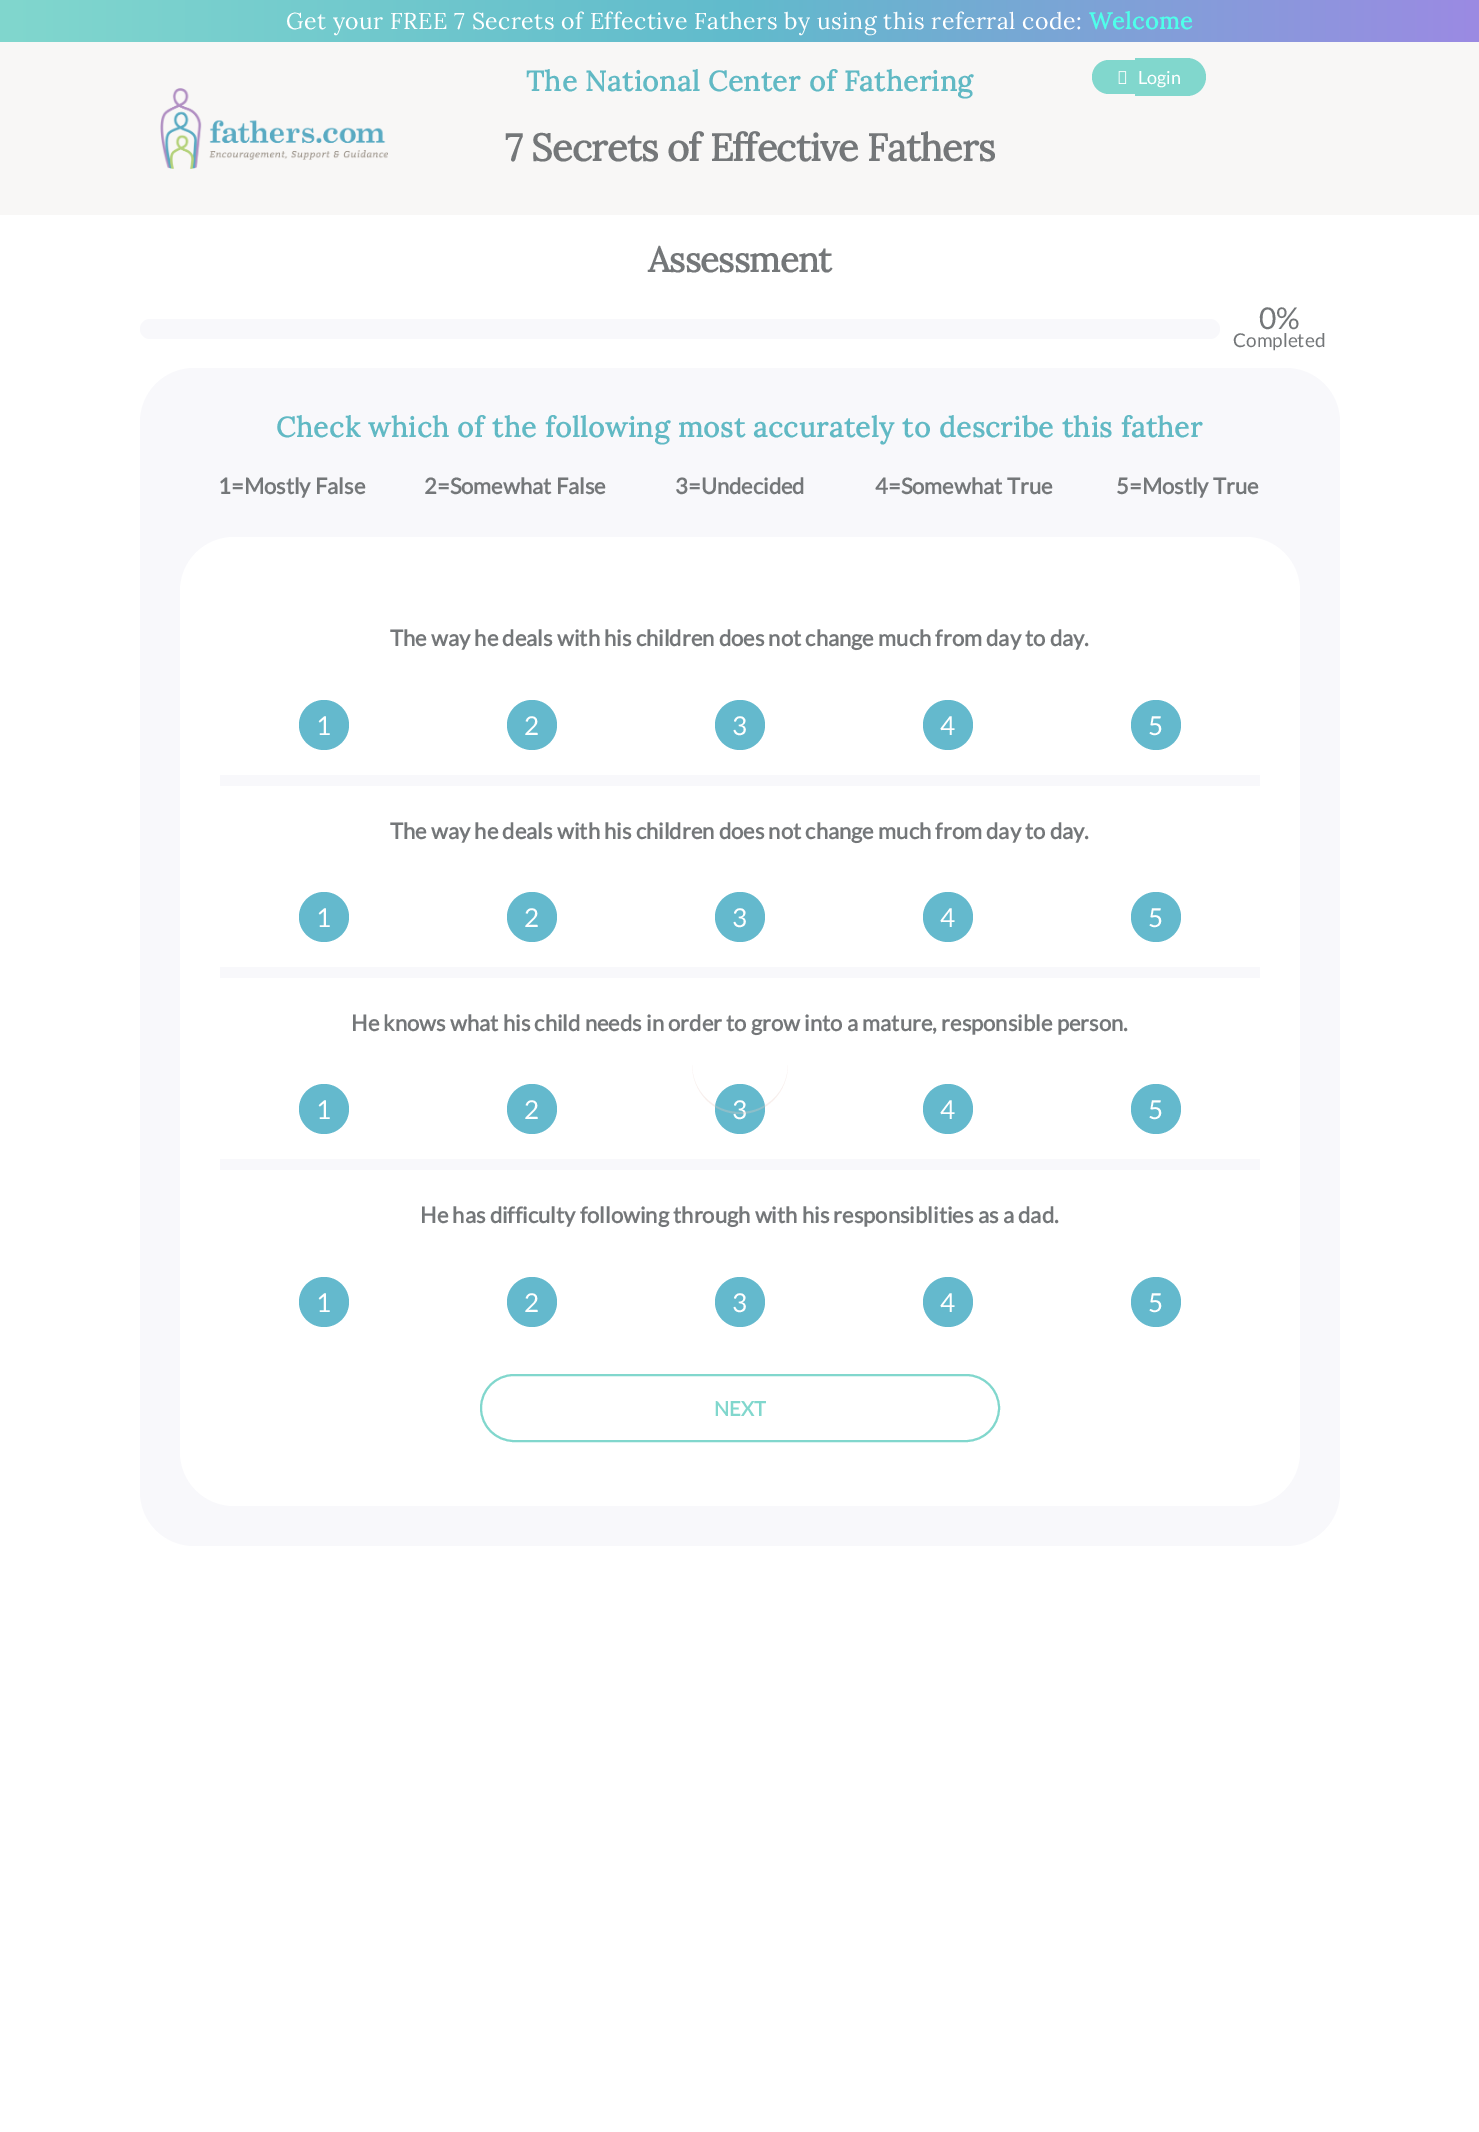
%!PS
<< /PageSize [1479 2132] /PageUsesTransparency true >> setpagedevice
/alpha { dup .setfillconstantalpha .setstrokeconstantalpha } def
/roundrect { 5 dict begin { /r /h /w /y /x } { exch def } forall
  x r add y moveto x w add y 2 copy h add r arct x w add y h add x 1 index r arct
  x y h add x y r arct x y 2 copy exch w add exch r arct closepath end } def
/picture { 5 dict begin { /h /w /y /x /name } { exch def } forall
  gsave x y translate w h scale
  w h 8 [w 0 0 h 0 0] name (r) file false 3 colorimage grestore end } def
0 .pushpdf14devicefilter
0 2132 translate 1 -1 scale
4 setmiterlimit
1 setgray
0 0 1479 2132 rectfill
gsave newpath 0 0 moveto 1479 0 lineto 1479 42 lineto 0 42 lineto closepath clip newpath
<< /ShadingType 2 /ColorSpace /DeviceRGB /Coords [0 21 1479 21] /Extend [true true] /Function << /FunctionType 3 /Domain [0 1] /Functions [<< /FunctionType 2 /Domain [0 1] /C0 [0.506 0.843 0.804] /C1 [0.38 0.733 0.8] /N 1 >> << /FunctionType 2 /Domain [0 1] /C0 [0.38 0.733 0.8] /C1 [0.608 0.541 0.89] /N 1 >>] /Bounds [0.5] /Encode [0 1 0 1] >> >> shfill grestore
/Lora-Regular [23 0 0 -23 0 0] selectfont
286 29 moveto 0.45 0 (Get your FREE 7 Secrets of Effective Fathers by using this referral code:) ashow
/Lora-Bold [23 0 0 -23 0 0] selectfont
0.31 1 0.918 setrgbcolor
1089 29 moveto 0.45 0 (Welcome) ashow
0.973 0.969 0.965 setrgbcolor
0 42 1479 173 rectfill
(img1.rgb) 160 88 228 81 picture
/Lora-Bold [28 0 0 -28 0 0] selectfont
0.38 0.725 0.769 setrgbcolor
526 91 moveto 0.55 0 (The National Center of Fathering) ashow
/Lora-Bold [38 0 0 -38 0 0] selectfont
0.455 0.467 0.475 setrgbcolor
505 161 moveto -0.75 0 (7 Secrets of Effective Fathers) ashow
0.506 0.843 0.804 setrgbcolor
newpath 1109 60 moveto 1135 60 lineto 1135 94 lineto 1109 94 lineto 1099.5 94 1092 86.5 1092 77 curveto 1092 67.5 1099.5 60 1109 60 curveto closepath fill
newpath 1135 58 moveto 1187 58 lineto 1197.5 58 1206 66.5 1206 77 curveto 1206 87.5 1197.5 96 1187 96 curveto 1135 96 lineto closepath fill
(img2.rgb) 1118 71 9 13 picture
/Lato-Regular [18 0 0 -18 0 0] selectfont
1 setgray
1138 84 moveto (Login) show
/Lora-Bold [35 0 0 -35 0 0] selectfont
0.455 0.467 0.475 setrgbcolor
648 272 moveto -0.75 0 (Assessment) ashow
0.973 0.973 0.984 setrgbcolor
140 319 1080 20 10 roundrect fill
/Lato-Regular [30 0 0 -30 0 0] selectfont
0.455 0.467 0.475 setrgbcolor
1259 329 moveto (0%) show
/Lato-Regular [19 0 0 -19 0 0] selectfont
1233 347 moveto (Completed) show
0.973 0.973 0.984 setrgbcolor
140 368 1200 1178 54 roundrect fill
/Lora-Bold [28 0 0 -28 0 0] selectfont
0.38 0.725 0.769 setrgbcolor
276 437 moveto 0.55 0 (Check which of the following most accurately to describe this father) ashow
/Lato-Bold [22 0 0 -22 0 0] selectfont
0.455 0.467 0.475 setrgbcolor
218 494 moveto (1=Mostly False) show
424 494 moveto (2=Somewhat False) show
675 494 moveto (3=Undecided) show
875 494 moveto (4=Somewhat True) show
1116 494 moveto (5=Mostly True) show
1 setgray
180 537 1120 969 54 roundrect fill
0.973 0.973 0.984 setrgbcolor
220 775 1040 11 rectfill
0.455 0.467 0.475 setrgbcolor
390 646 moveto (The way he deals with his children does not change much from day to day.) show
0.392 0.725 0.804 setrgbcolor
newpath 324 725 25 0 360 arc closepath fill
/Lato-Regular [26 0 0 -26 0 0] selectfont
1 setgray
316 735 moveto (1) show
0.392 0.725 0.804 setrgbcolor
newpath 532 725 25 0 360 arc closepath fill
1 setgray
524 735 moveto (2) show
0.392 0.725 0.804 setrgbcolor
newpath 740 725 25 0 360 arc closepath fill
1 setgray
732 735 moveto (3) show
0.392 0.725 0.804 setrgbcolor
newpath 948 725 25 0 360 arc closepath fill
1 setgray
940 735 moveto (4) show
0.392 0.725 0.804 setrgbcolor
newpath 1156 725 25 0 360 arc closepath fill
1 setgray
1148 735 moveto (5) show
0.973 0.973 0.984 setrgbcolor
220 967 1040 11 rectfill
/Lato-Bold [22 0 0 -22 0 0] selectfont
0.455 0.467 0.475 setrgbcolor
390 839 moveto (The way he deals with his children does not change much from day to day.) show
0.392 0.725 0.804 setrgbcolor
newpath 324 917 25 0 360 arc closepath fill
/Lato-Regular [26 0 0 -26 0 0] selectfont
1 setgray
316 927 moveto (1) show
0.392 0.725 0.804 setrgbcolor
newpath 532 917 25 0 360 arc closepath fill
1 setgray
524 927 moveto (2) show
0.392 0.725 0.804 setrgbcolor
newpath 740 917 25 0 360 arc closepath fill
1 setgray
732 927 moveto (3) show
0.392 0.725 0.804 setrgbcolor
newpath 948 917 25 0 360 arc closepath fill
1 setgray
940 927 moveto (4) show
0.392 0.725 0.804 setrgbcolor
newpath 1156 917 25 0 360 arc closepath fill
1 setgray
1148 927 moveto (5) show
0.973 0.973 0.984 setrgbcolor
220 1159 1040 11 rectfill
/Lato-Bold [22 0 0 -22 0 0] selectfont
0.455 0.467 0.475 setrgbcolor
351 1031 moveto (He knows what his child needs in order to grow into a mature, responsible person.) show
0.392 0.725 0.804 setrgbcolor
newpath 324 1109 25 0 360 arc closepath fill
/Lato-Regular [26 0 0 -26 0 0] selectfont
1 setgray
316 1119 moveto (1) show
0.392 0.725 0.804 setrgbcolor
newpath 532 1109 25 0 360 arc closepath fill
1 setgray
524 1119 moveto (2) show
0.392 0.725 0.804 setrgbcolor
newpath 740 1109 25 0 360 arc closepath fill
1 setgray
732 1119 moveto (3) show
0.392 0.725 0.804 setrgbcolor
newpath 948 1109 25 0 360 arc closepath fill
1 setgray
940 1119 moveto (4) show
0.392 0.725 0.804 setrgbcolor
newpath 1156 1109 25 0 360 arc closepath fill
1 setgray
1148 1119 moveto (5) show
/Lato-Bold [22 0 0 -22 0 0] selectfont
0.455 0.467 0.475 setrgbcolor
420 1223 moveto (He has difficulty following through with his responsiblities as a dad.) show
0.392 0.725 0.804 setrgbcolor
newpath 324 1302 25 0 360 arc closepath fill
/Lato-Regular [26 0 0 -26 0 0] selectfont
1 setgray
316 1312 moveto (1) show
0.392 0.725 0.804 setrgbcolor
newpath 532 1302 25 0 360 arc closepath fill
1 setgray
524 1312 moveto (2) show
0.392 0.725 0.804 setrgbcolor
newpath 740 1302 25 0 360 arc closepath fill
1 setgray
732 1312 moveto (3) show
0.392 0.725 0.804 setrgbcolor
newpath 948 1302 25 0 360 arc closepath fill
1 setgray
940 1312 moveto (4) show
0.392 0.725 0.804 setrgbcolor
newpath 1156 1302 25 0 360 arc closepath fill
1 setgray
1148 1312 moveto (5) show
0.506 0.843 0.804 setrgbcolor
2 setlinewidth
481 1375 518 66 33 roundrect stroke
/Lato-Bold [20 0 0 -20 0 0] selectfont
714 1416 moveto (NEXT) show
0.31 alpha
0.898 0.784 0.753 setrgbcolor
newpath 692 1064 moveto 692 1091 713 1112 740 1112 curveto 767 1112 788 1091 788 1064 curveto 788 1092 767 1114 740 1114 curveto 713 1114 692 1092 692 1064 curveto fill
.poppdf14devicefilter showpage
